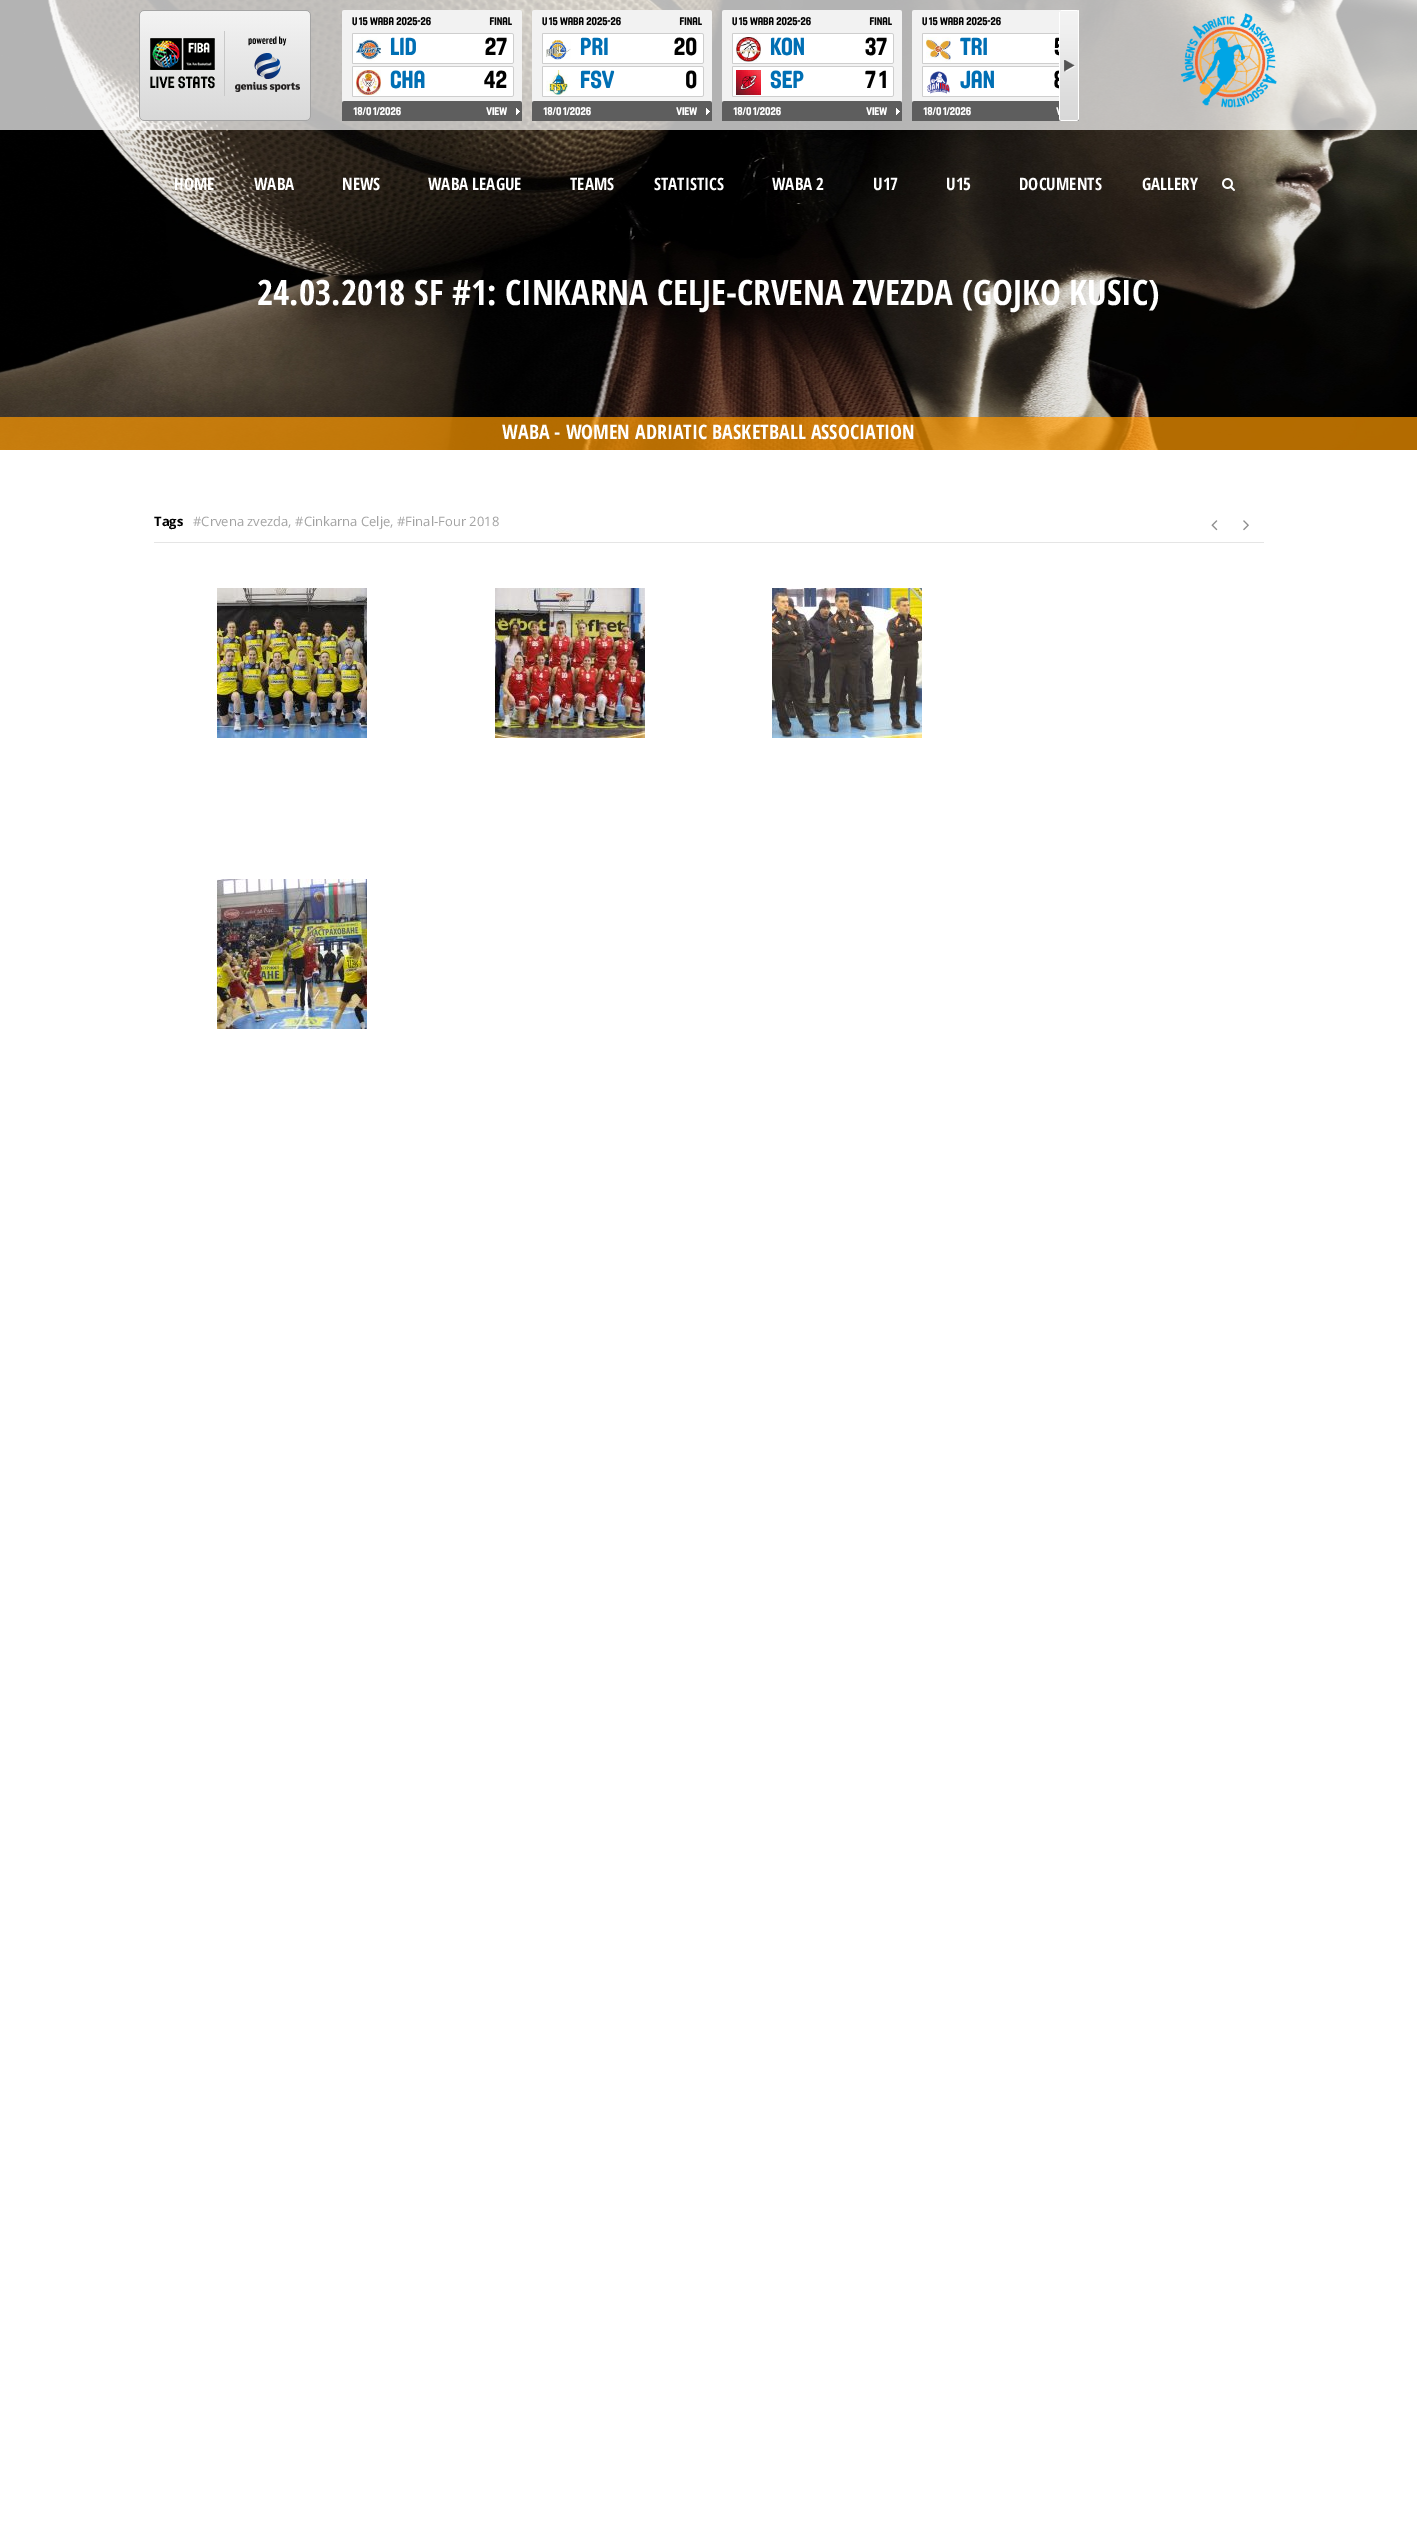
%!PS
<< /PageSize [1417 2531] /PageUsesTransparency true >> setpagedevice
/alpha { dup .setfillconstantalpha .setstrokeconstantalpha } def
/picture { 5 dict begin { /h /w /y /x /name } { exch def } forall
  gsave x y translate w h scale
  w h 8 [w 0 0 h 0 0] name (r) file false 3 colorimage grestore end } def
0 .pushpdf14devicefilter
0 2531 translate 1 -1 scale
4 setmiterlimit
1 setgray
0 0 1417 2531 rectfill
(img1.rgb) 0 0 1417 450 picture
0.7 alpha
0 0 1417 130 rectfill
1 alpha
(img2.rgb) 139 10 940 111 picture
(img3.rgb) 1180 13 97 95 picture
/OpenSansCondensed-Bold [17 0 0 -17 0 0] selectfont
174 190 moveto (HOME) show
254 190 moveto (WABA) show
342 190 moveto (NEWS) show
428 190 moveto (WABA LEAGUE) show
570 190 moveto (TEAMS) show
654 190 moveto (STATISTICS) show
772 190 moveto (WABA 2) show
873 190 moveto (U17) show
946 190 moveto (U15) show
1019 190 moveto (DOCUMENTS) show
1142 190 moveto (GALLERY) show
(img4.rgb) 1222 178 13 13 picture
/OpenSansCondensed-Bold [35 0 0 -35 0 0] selectfont
257 305 moveto (24.03.2018 SF #1: CINKARNA CELJE-CRVENA ZVEZDA \(GOJKO KUSIC\)) show
0.7 alpha
1 0.6 0 setrgbcolor
0 417 1417 33 rectfill
/OpenSansCondensed-Bold [20 0 0 -20 0 0] selectfont
1 alpha
1 setgray
502 439 moveto (WABA - WOMEN ADRIATIC BASKETBALL ASSOCIATION) show
0.898 setgray
154 542 1110 1 rectfill
gsave
154 510 1110 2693 rectclip
/OpenSans-Bold [13 0 0 -13 0 0] selectfont
0 setgray
154 526 moveto (Tags) show
grestore
/OpenSans-Regular [13 0 0 -13 0 0] selectfont
0.635 setgray
193 526 moveto (#Crvena zvezda, #Cinkarna Celje, #Final-Four 2018) show
(img5.rgb) 1211 520 7 11 picture
(img6.rgb) 1243 520 6 11 picture
(img7.rgb) 217 588 150 150 picture
(img8.rgb) 495 588 150 150 picture
(img9.rgb) 772 588 150 150 picture
(img10.rgb) 217 879 150 150 picture
.poppdf14devicefilter showpage
